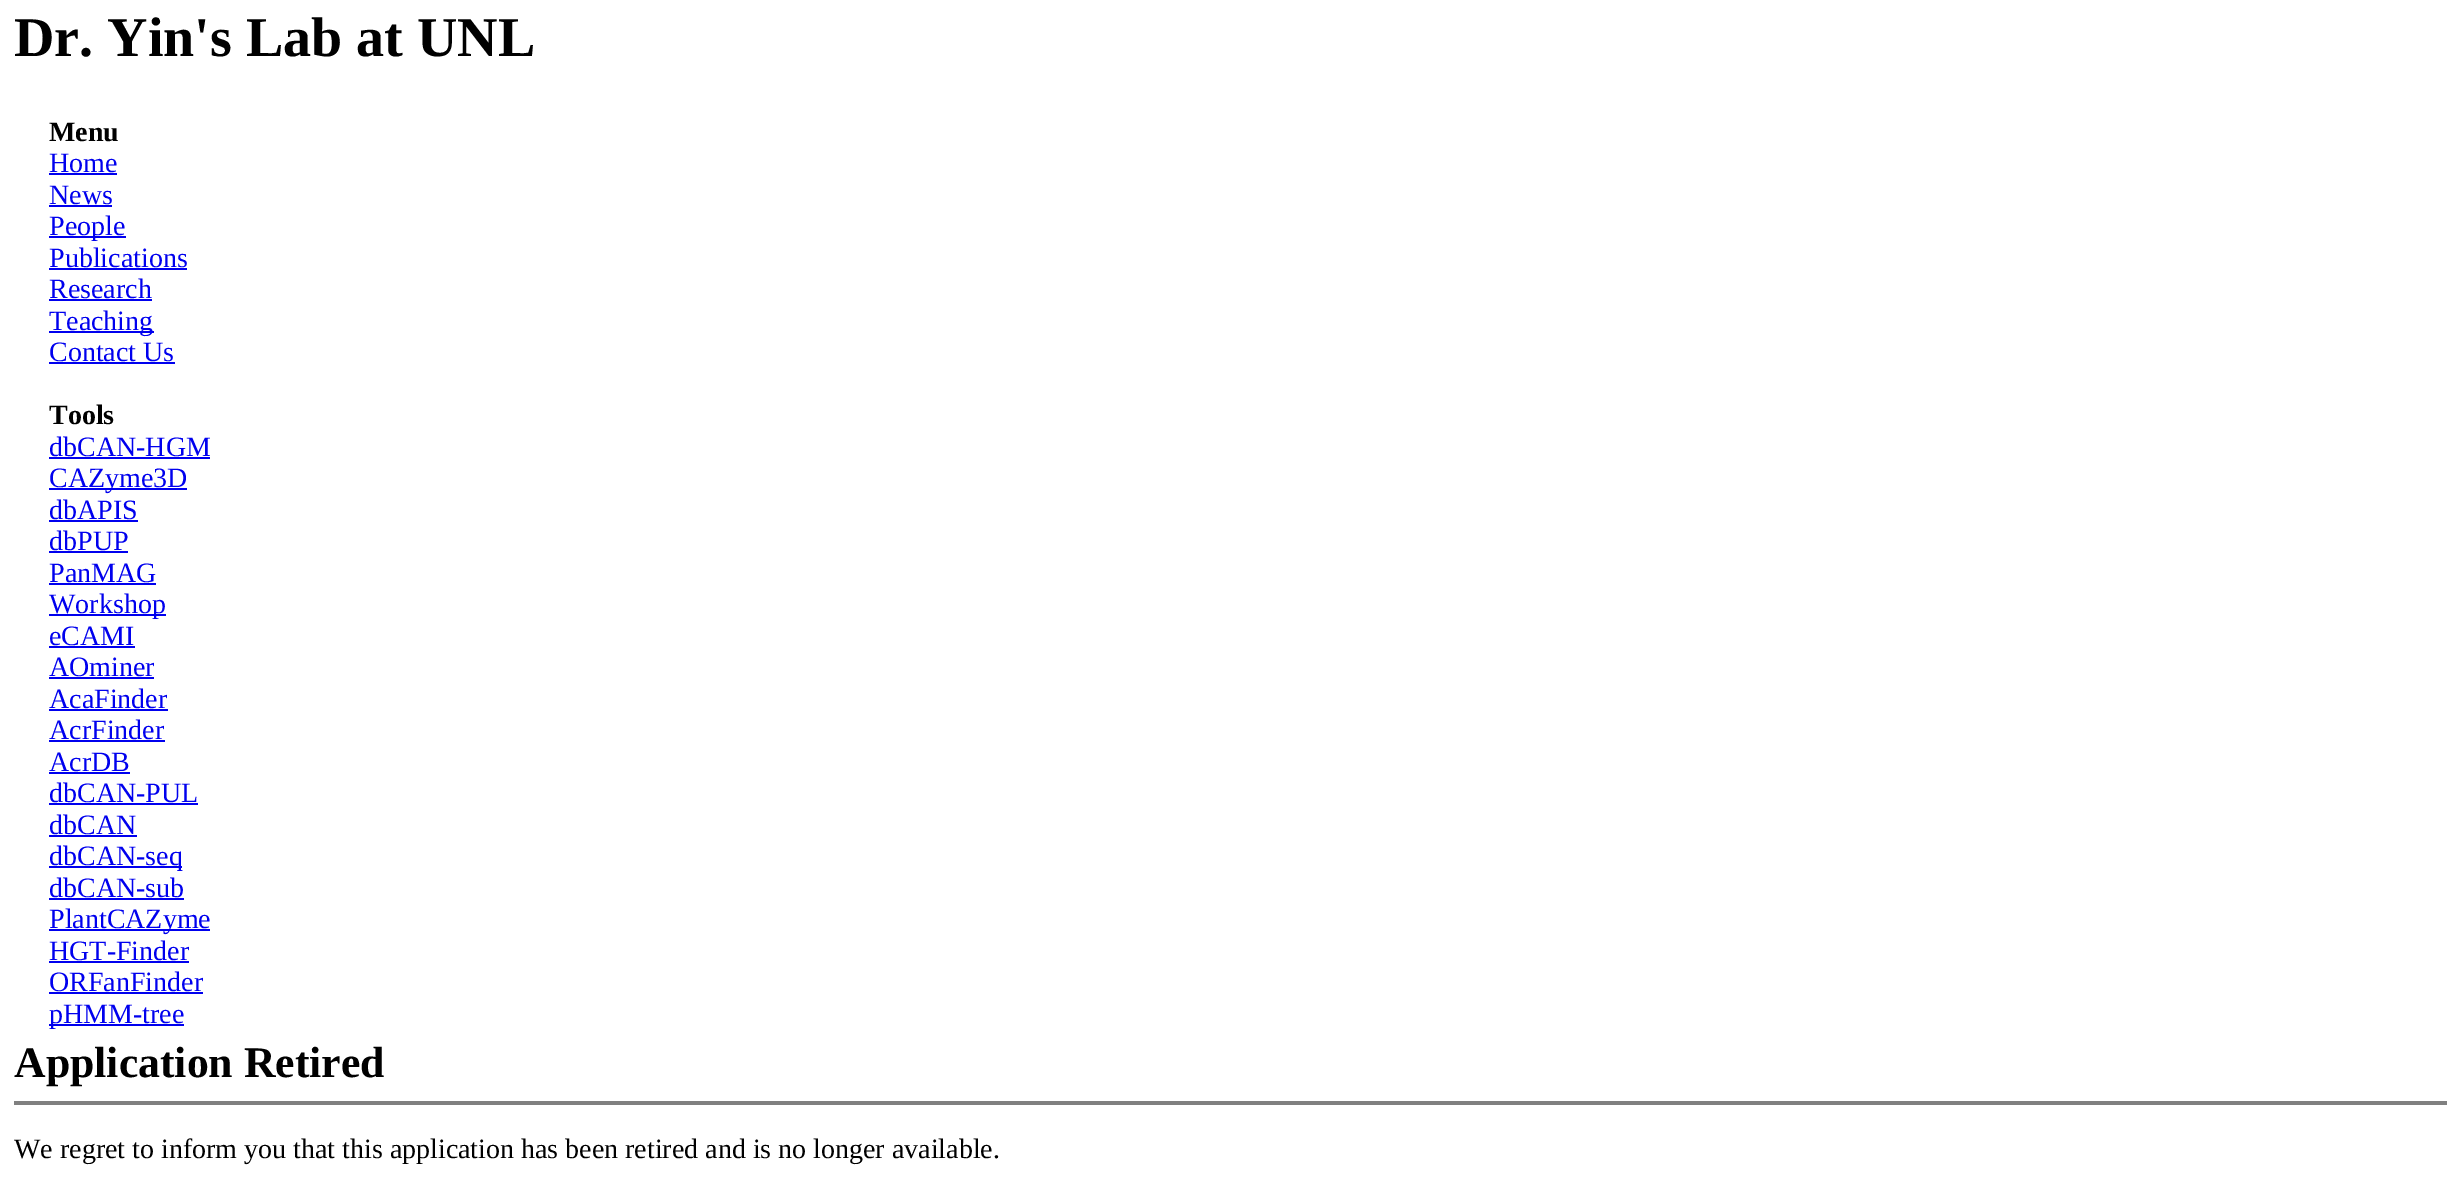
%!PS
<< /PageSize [2460 1185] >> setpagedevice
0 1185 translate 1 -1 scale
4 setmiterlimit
1 setgray
0 0 2460 1185 rectfill
/LiberationSerif-Bold [56 0 0 -56 0 0] selectfont
0 setgray
14 56 moveto (Dr. Yin's Lab at UNL) show
/LiberationSerif-Bold [28 0 0 -28 0 0] selectfont
49 141 moveto (Menu) show
/LiberationSerif-Regular [28 0 0 -28 0 0] selectfont
0 0 0.933 setrgbcolor
49 172 moveto (Home) show
49 173 68 2 rectfill
49 204 moveto (News) show
49 205 63 2 rectfill
49 236 77 2 rectfill
49 235 moveto (People) show
49 267 moveto (Publications) show
49 268 138 2 rectfill
49 298 moveto (Research) show
49 299 103 2 rectfill
49 331 105 2 rectfill
49 330 moveto (Teaching) show
49 361 moveto (Contact Us) show
49 362 126 2 rectfill
/LiberationSerif-Bold [28 0 0 -28 0 0] selectfont
0 setgray
49 424 moveto (Tools) show
/LiberationSerif-Regular [28 0 0 -28 0 0] selectfont
0 0 0.933 setrgbcolor
49 456 moveto (dbCAN-HGM) show
49 457 161 2 rectfill
49 488 138 2 rectfill
49 487 moveto (CAZyme3D) show
49 519 moveto (dbAPIS) show
49 520 89 2 rectfill
49 550 moveto (dbPUP) show
49 551 79 2 rectfill
49 582 moveto (PanMAG) show
49 583 107 2 rectfill
49 614 117 2 rectfill
49 613 moveto (Workshop) show
49 645 moveto (eCAMI) show
49 646 86 2 rectfill
49 676 moveto (AOminer) show
49 677 105 2 rectfill
49 708 moveto (AcaFinder) show
49 709 119 2 rectfill
49 739 moveto (AcrFinder) show
49 740 116 2 rectfill
49 771 moveto (AcrDB) show
49 772 81 2 rectfill
49 802 moveto (dbCAN-PUL) show
49 803 149 2 rectfill
49 834 moveto (dbCAN) show
49 835 88 2 rectfill
49 866 133 2 rectfill
49 865 moveto (dbCAN-seq) show
49 897 moveto (dbCAN-sub) show
49 898 135 2 rectfill
49 929 161 2 rectfill
49 928 moveto (PlantCAZyme) show
49 960 moveto (HGT-Finder) show
49 961 140 2 rectfill
49 991 moveto (ORFanFinder) show
49 992 154 2 rectfill
49 1024 135 2 rectfill
49 1023 moveto (pHMM-tree) show
/LiberationSerif-Bold [43.75 0 0 -43.75 0 0] selectfont
0 setgray
14 1077 moveto (Application Retired) show
0.502 setgray
14 1101 2433 4 rectfill
/LiberationSerif-Regular [28 0 0 -28 0 0] selectfont
0 setgray
14 1158 moveto (We regret to inform you that this application has been retired and is no longer available.) show
showpage
